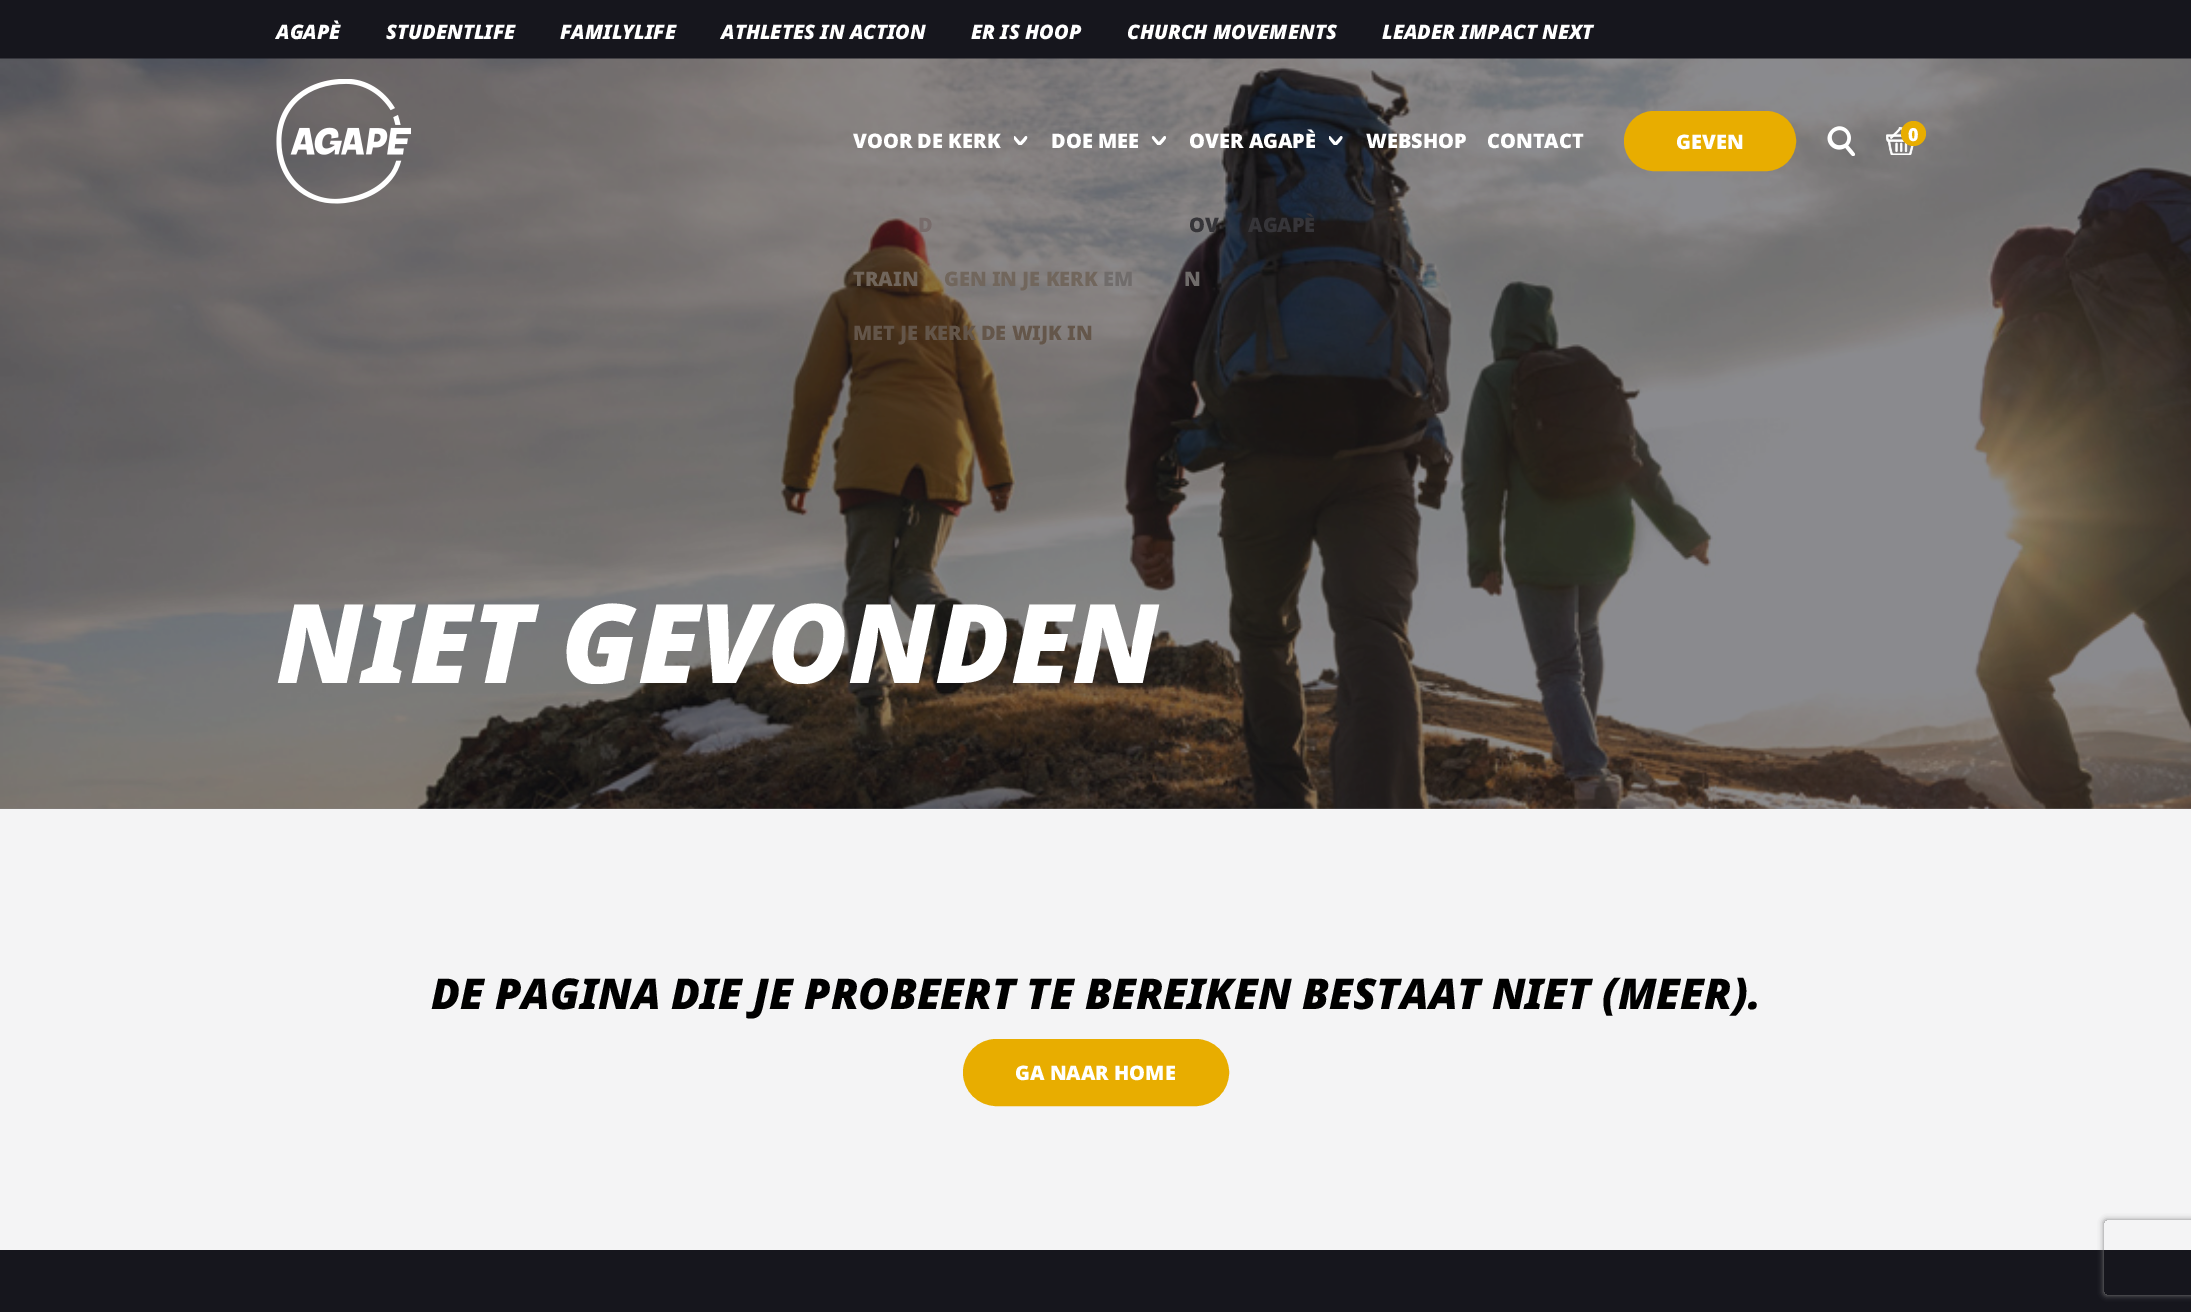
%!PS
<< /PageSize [2191 1312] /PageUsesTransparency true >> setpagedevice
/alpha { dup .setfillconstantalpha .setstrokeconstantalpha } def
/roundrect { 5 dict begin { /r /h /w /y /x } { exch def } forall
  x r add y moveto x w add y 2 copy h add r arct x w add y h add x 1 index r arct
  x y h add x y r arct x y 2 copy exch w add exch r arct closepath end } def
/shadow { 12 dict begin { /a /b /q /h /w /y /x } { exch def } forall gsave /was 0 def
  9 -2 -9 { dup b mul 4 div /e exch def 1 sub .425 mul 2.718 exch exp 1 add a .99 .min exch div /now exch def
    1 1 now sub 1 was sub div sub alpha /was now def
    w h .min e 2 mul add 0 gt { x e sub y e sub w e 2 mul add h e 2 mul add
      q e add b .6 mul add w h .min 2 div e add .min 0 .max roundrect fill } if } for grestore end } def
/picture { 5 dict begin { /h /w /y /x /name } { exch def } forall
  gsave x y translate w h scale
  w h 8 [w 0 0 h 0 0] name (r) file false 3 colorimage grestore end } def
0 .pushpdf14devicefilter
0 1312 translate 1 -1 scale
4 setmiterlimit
1 setgray
0 0 2191 1312 rectfill
0.086 0.086 0.114 setrgbcolor
0 0 2191 59 rectfill
/NotoSans-BlackItalic [20 0 0 -20 0 0] selectfont
1 setgray
276 39 moveto (AGAPÈ) show
386 39 moveto (STUDENTLIFE) show
560 39 moveto (FAMILYLIFE) show
721 39 moveto (ATHLETES IN ACTION) show
971 39 moveto (ER IS HOOP) show
1127 39 moveto (CHURCH MOVEMENTS) show
1382 39 moveto (LEADER IMPACT NEXT) show
(img7.rgb) 0 58 2191 751 picture
(img1.rgb) 276 79 135 125 picture
/NotoSans-Black [20 0 0 -20 0 0] selectfont
853 148 moveto (VOOR DE KERK) show
(img2.rgb) 1014 136 14 9 picture
0.471 0.424 0.42 setrgbcolor
918 232 moveto (D) show
0.443 0.4 0.361 setrgbcolor
853 286 moveto (TRAIN) show
944 286 moveto (GEN IN JE KERK) show
0.392 0.337 0.29 setrgbcolor
853 340 moveto (MET JE KERK DE WIJK IN) show
1 setgray
1051 148 moveto (DOE MEE) show
(img3.rgb) 1151 136 15 9 picture
0.439 0.424 0.42 setrgbcolor
1103 286 moveto (EM) show
1184 286 moveto (N) show
1 setgray
1189 148 moveto (OVER AGAPÈ) show
(img4.rgb) 1329 136 14 9 picture
0.212 0.208 0.224 setrgbcolor
1189 232 moveto (OV) show
1248 232 moveto (AGAPÈ) show
1 setgray
1366 148 moveto (WEBSHOP) show
1487 148 moveto (CONTACT) show
0.91 0.678 0 setrgbcolor
1625.5 112.5 169 57 28.5 roundrect gsave fill grestore
3 setlinewidth
stroke
1 setgray
1676 149 moveto (GEVEN) show
(img5.rgb) 1827 126 29 30 picture
(img6.rgb) 1886 127 28 28 picture
0.91 0.678 0 setrgbcolor
newpath 1913.5 133.5 12.5 0 360 arc closepath fill
/NotoSans-Black [18 0 0 -18 0 0] selectfont
1 setgray
1908 141 moveto (0) show
/NotoSans-BlackItalic [110 0 0 -110 0 0] selectfont
276 683 moveto (NIET GEVONDEN) show
0.957 0.957 0.961 setrgbcolor
0 809 2191 441 rectfill
/NotoSans-BlackItalic [42.5 0 0 -42.5 0 0] selectfont
0 setgray
431 1009 moveto (DE PAGINA DIE JE PROBEERT TE BEREIKEN BESTAAT NIET \(MEER\).) show
0.91 0.678 0 setrgbcolor
964.5 1040.5 263 64 32 roundrect gsave fill grestore
stroke
/NotoSans-Black [20 0 0 -20 0 0] selectfont
1 setgray
1015 1080 moveto (GA NAAR HOME) show
0.086 0.086 0.114 setrgbcolor
0 1250 2191 62 rectfill
gsave
newpath 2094 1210 moveto 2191 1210 lineto 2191 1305 lineto 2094 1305 lineto closepath 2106.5 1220 moveto 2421.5 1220 lineto 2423 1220 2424 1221 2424 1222.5 curveto 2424 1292.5 lineto 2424 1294 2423 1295 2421.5 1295 curveto 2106.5 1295 lineto 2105 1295 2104 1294 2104 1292.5 curveto 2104 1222.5 lineto 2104 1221 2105 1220 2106.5 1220 curveto closepath eoclip newpath
0.502 setgray
2104 1220 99 75 2.5 3 1 shadow
grestore
.poppdf14devicefilter showpage
